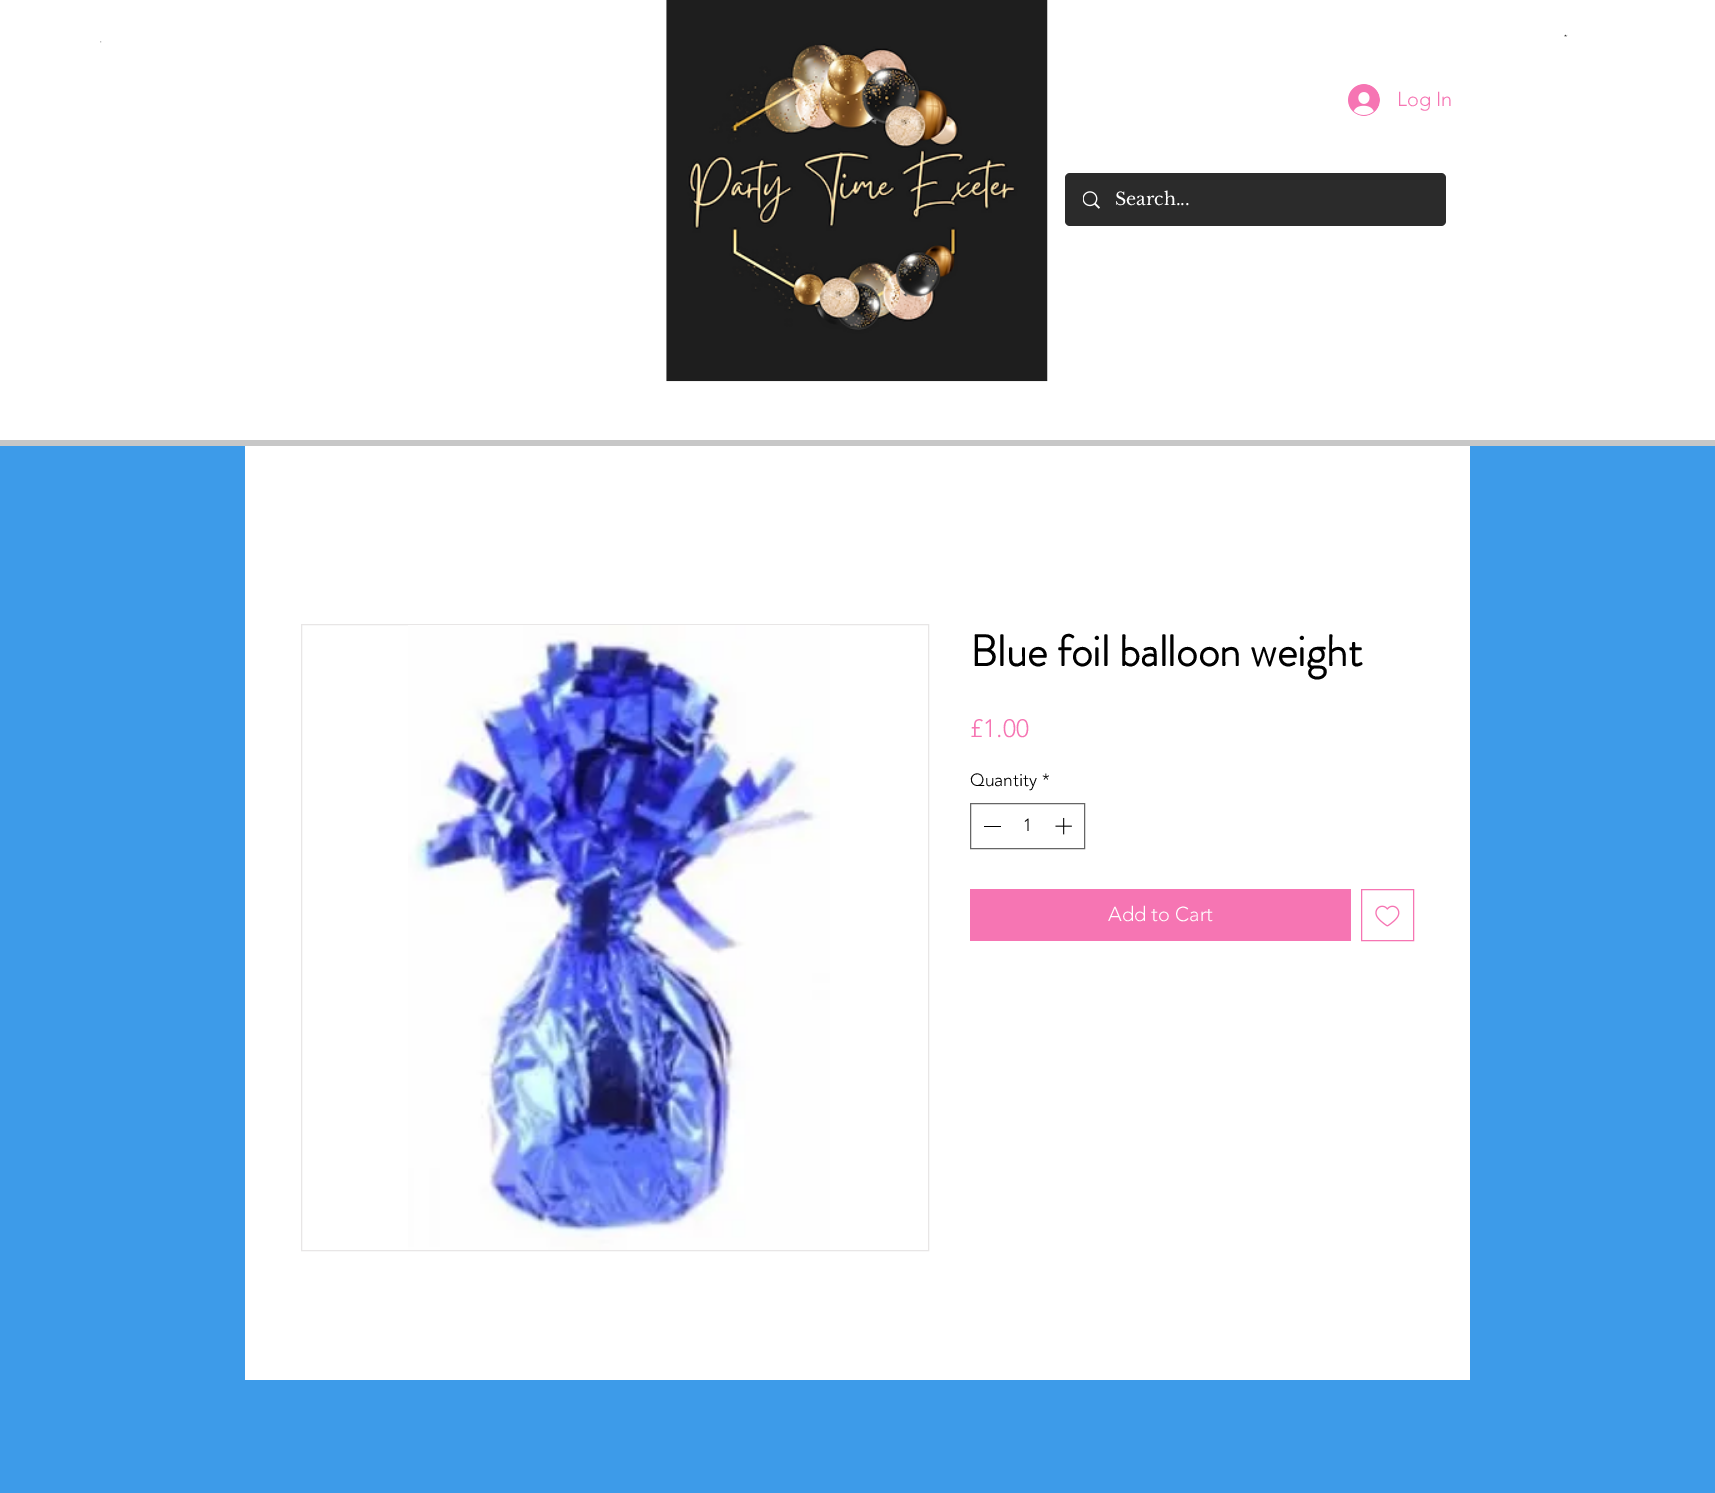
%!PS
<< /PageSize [1715 1493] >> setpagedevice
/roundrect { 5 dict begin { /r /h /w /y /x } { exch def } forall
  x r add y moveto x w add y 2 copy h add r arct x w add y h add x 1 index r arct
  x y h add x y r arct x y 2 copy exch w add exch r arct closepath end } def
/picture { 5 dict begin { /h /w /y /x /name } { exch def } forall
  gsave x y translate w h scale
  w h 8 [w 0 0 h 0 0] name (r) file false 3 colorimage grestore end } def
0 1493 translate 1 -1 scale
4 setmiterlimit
0.239 0.608 0.914 setrgbcolor
0 0 1715 1493 rectfill
1 setgray
0 0 1715 440 rectfill
(img1.rgb) 1564 34 4 3 picture
(img2.rgb) 100 41 2 2 picture
0.78 setgray
0 440 1715 6 rectfill
(img3.rgb) 666 0 382 382 picture
(img4.rgb) 1348 84 32 32 picture
/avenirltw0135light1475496-Light [20 0 0 -20 0 0] selectfont
0.965 0.459 0.702 setrgbcolor
1397 106 moveto (Log In) show
0.169 setgray
1065 173 381 53 5 roundrect fill
(img5.rgb) 1083 191 17 18 picture
/LibreBaskerville-Regular [17.5 0 0 -17.5 0 0] selectfont
1 setgray
1115 205 moveto (Search...) show
245 446 1225 934 rectfill
0.91 0.902 0.902 setrgbcolor
301.5 624.5 627 626 rectstroke
(img6.rgb) 408 625 422 625 picture
/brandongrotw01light-Bold [43.75 0 0 -43.75 0 0] selectfont
0 setgray
970 666 moveto (Blue foil balloon weight) show
/avenirltw0135light1475496-Light [25 0 0 -25 0 0] selectfont
0.965 0.459 0.702 setrgbcolor
970 737 moveto (£1.00) show
/avenirltw0135light1475496-Light [17.5 0 0 -17.5 0 0] selectfont
0 setgray
970 786 moveto (Quantity) show
1042 786 moveto (*) show
0.4 setgray
970.5 803.5 114 45 rectstroke
0 setgray
984 826 17 1 rectfill
1023 831 moveto (1) show
(img7.rgb) 1055 817 17 18 picture
0.965 0.459 0.702 setrgbcolor
970 889 381 52 rectfill
/avenirltw0135light1475496-Light [20 0 0 -20 0 0] selectfont
1 setgray
1108 921 moveto (Add to Cart) show
0.965 0.459 0.702 setrgbcolor
1361.5 889.5 52 51 rectstroke
(img8.rgb) 1375 905 25 22 picture
showpage
